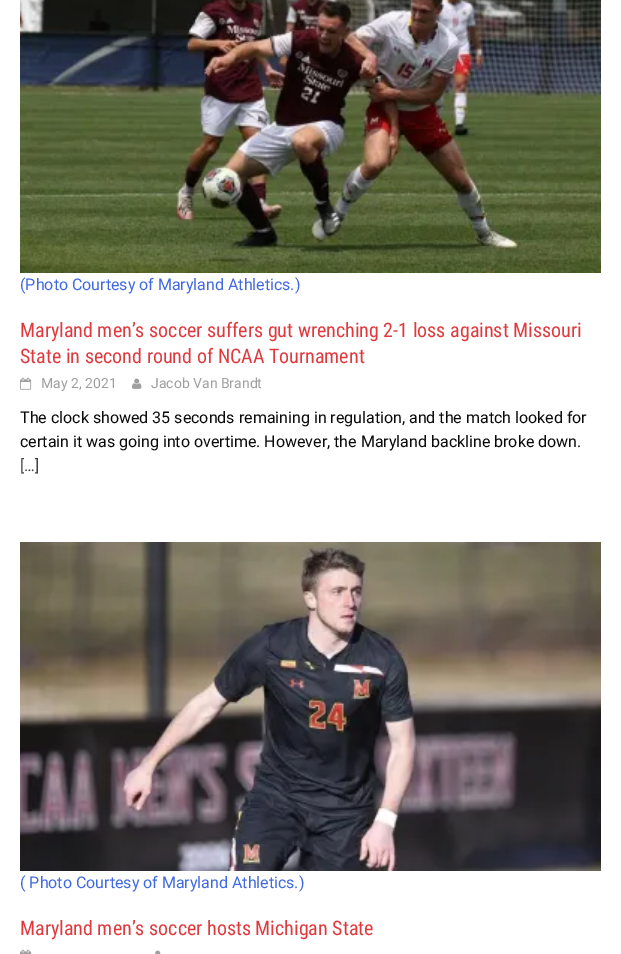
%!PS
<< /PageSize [621 954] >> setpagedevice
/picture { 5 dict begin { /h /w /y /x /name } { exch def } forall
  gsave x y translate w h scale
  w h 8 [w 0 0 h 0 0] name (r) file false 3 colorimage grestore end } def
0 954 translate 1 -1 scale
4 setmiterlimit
1 setgray
0 0 621 954 rectfill
(img1.rgb) 20 0 581 273 picture
/Roboto-Regular [16 0 0 -16 0 0] selectfont
0.255 0.412 0.882 setrgbcolor
20 290 moveto (\(Photo Courtesy of Maryland Athletics.\)) show
/RobotoCondensed-Regular [20 0 0 -20 0 0] selectfont
0.878 0.227 0.243 setrgbcolor
20 337 moveto (Maryland men’s soccer suffers gut wrenching 2-1 loss against Missouri) show
20 363 moveto (State in second round of NCAA Tournament) show
(img2.rgb) 20 377 12 13 picture
/Roboto-Regular [14 0 0 -14 0 0] selectfont
0.624 setgray
41 388 moveto (May 2, 2021) show
(img3.rgb) 132 378 10 11 picture
151 388 moveto (Jacob Van Brandt) show
/Roboto-Regular [16 0 0 -16 0 0] selectfont
0.039 setgray
20 423 moveto (The clock showed 35 seconds remaining in regulation, and the match looked for) show
20 447 moveto (certain it was going into overtime. However, the Maryland backline broke down.) show
0.251 setgray
20 471 moveto ([…]) show
(img4.rgb) 20 542 581 329 picture
0.255 0.412 0.882 setrgbcolor
20 888 moveto (\( Photo Courtesy of Maryland Athletics.\)) show
/RobotoCondensed-Regular [20 0 0 -20 0 0] selectfont
0.878 0.227 0.243 setrgbcolor
20 935 moveto (Maryland men’s soccer hosts Michigan State) show
(img5.rgb) 20 949 12 5 picture
(img6.rgb) 155 950 6 4 picture
showpage
